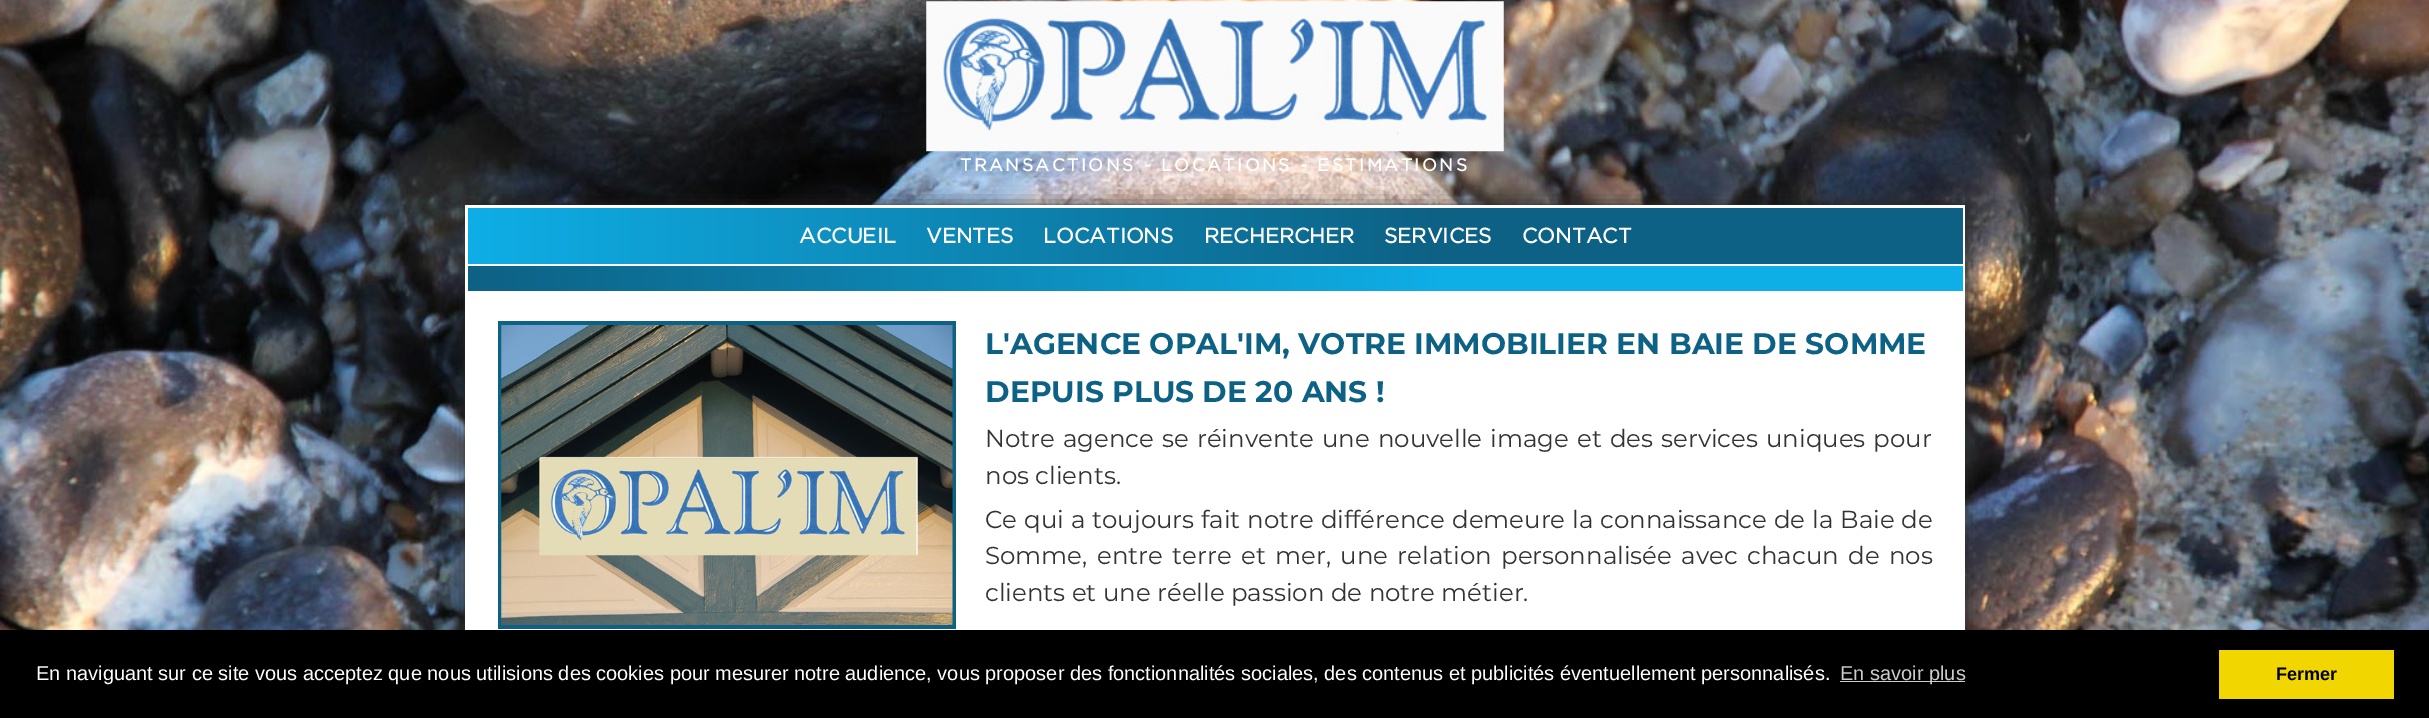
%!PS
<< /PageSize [2429 718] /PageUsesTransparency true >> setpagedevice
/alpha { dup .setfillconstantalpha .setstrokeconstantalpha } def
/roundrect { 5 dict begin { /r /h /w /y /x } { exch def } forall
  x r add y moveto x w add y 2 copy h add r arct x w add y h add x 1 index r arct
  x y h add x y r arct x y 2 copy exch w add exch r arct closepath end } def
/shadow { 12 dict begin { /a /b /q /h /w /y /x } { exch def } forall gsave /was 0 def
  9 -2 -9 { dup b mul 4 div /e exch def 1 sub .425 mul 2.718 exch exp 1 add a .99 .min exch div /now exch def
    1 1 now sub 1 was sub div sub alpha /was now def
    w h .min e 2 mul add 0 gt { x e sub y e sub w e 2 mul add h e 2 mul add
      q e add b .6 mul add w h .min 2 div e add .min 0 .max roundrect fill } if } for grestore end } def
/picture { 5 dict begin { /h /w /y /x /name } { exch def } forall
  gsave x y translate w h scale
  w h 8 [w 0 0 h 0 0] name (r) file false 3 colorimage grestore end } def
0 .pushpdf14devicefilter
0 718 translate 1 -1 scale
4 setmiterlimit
1 setgray
0 0 2429 718 rectfill
(img1.rgb) 0 0 2429 630 picture
(img2.rgb) 926 1 578 151 picture
/Gotham-Bold [17.5 0 0 -17.5 0 0] selectfont
960 171 moveto 2.5 0 (TRANSACTIONS - LOCATIONS - ESTIMATIONS) ashow
0.157 setgray
466 206 1500 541 0 9.5 1 shadow
1 setgray
465 205 1500 425 rectfill
gsave newpath 468 208 moveto 1963 208 lineto 1963 264 lineto 468 264 lineto closepath clip newpath
<< /ShadingType 2 /ColorSpace /DeviceRGB /Coords [468 208 1963 208] /Extend [true true] /Function << /FunctionType 3 /Domain [0 1] /Functions [<< /FunctionType 2 /Domain [0 1] /C0 [0.055 0.682 0.902] /C1 [0.051 0.38 0.518] /N 1 >> << /FunctionType 2 /Domain [0 1] /C0 [0.051 0.38 0.518] /C1 [0.051 0.38 0.518] /N 1 >>] /Bounds [0.65] /Encode [0 1 0 1] >> >> shfill grestore
/Gotham-Bold [21 0 0 -21 0 0] selectfont
799 243 moveto (ACCUEIL) show
926 243 moveto (VENTES) show
1043 243 moveto (LOCATIONS) show
1204 243 moveto (RECHERCHER) show
1384 243 moveto (SERVICES) show
1522 243 moveto (CONTACT) show
gsave newpath 468 266 moveto 1963 266 lineto 1963 291 lineto 468 291 lineto closepath clip newpath
<< /ShadingType 2 /ColorSpace /DeviceRGB /Coords [468 266 1963 266] /Extend [true true] /Function << /FunctionType 3 /Domain [0 1] /Functions [<< /FunctionType 2 /Domain [0 1] /C0 [0.051 0.38 0.518] /C1 [0.055 0.682 0.902] /N 1 >> << /FunctionType 2 /Domain [0 1] /C0 [0.055 0.682 0.902] /C1 [0.055 0.682 0.902] /N 1 >>] /Bounds [0.65] /Encode [0 1 0 1] >> >> shfill grestore
0.051 0.38 0.518 setrgbcolor
498 321 458 308 rectfill
(img3.rgb) 501 325 452 300 picture
/Montserrat-Bold [29.75 0 0 -29.75 0 0] selectfont
985 354 moveto (L'AGENCE OPAL'IM, VOTRE IMMOBILIER EN BAIE DE SOMME) show
985 402 moveto (DEPUIS PLUS DE 20 ANS !) show
/Montserrat-Regular [24.5 0 0 -24.5 0 0] selectfont
0.2 setgray
985 447 moveto 1.6 0 32 (Notre agence se réinvente une nouvelle image et des services uniques pour) widthshow
985 484 moveto (nos clients.) show
985 528 moveto 0.5 0 32 (Ce qui a toujours fait notre différence demeure la connaissance de la Baie de) widthshow
985 564 moveto 3 0 32 (Somme, entre terre et mer, une relation personnalisée avec chacun de nos) widthshow
985 601 moveto (clients et une réelle passion de notre métier.) show
0 setgray
0 630 2429 88 rectfill
/LiberationSans-Regular [20 0 0 -20 0 0] selectfont
1 setgray
36 680 moveto (En naviguant sur ce site vous acceptez que nous utilisions des cookies pour mesurer notre audience, vous proposer des fonctionnalités sociales, des contenus et publicités éventuellement personnalisés.) show
0.8 setgray
1840 681 125 1 rectfill
1840 680 moveto (En savoir plus) show
0.945 0.839 0 setrgbcolor
2219 650 175 49 rectfill
/LiberationSans-Bold [18 0 0 -18 0 0] selectfont
0 setgray
2276 680 moveto (Fermer) show
.poppdf14devicefilter showpage
